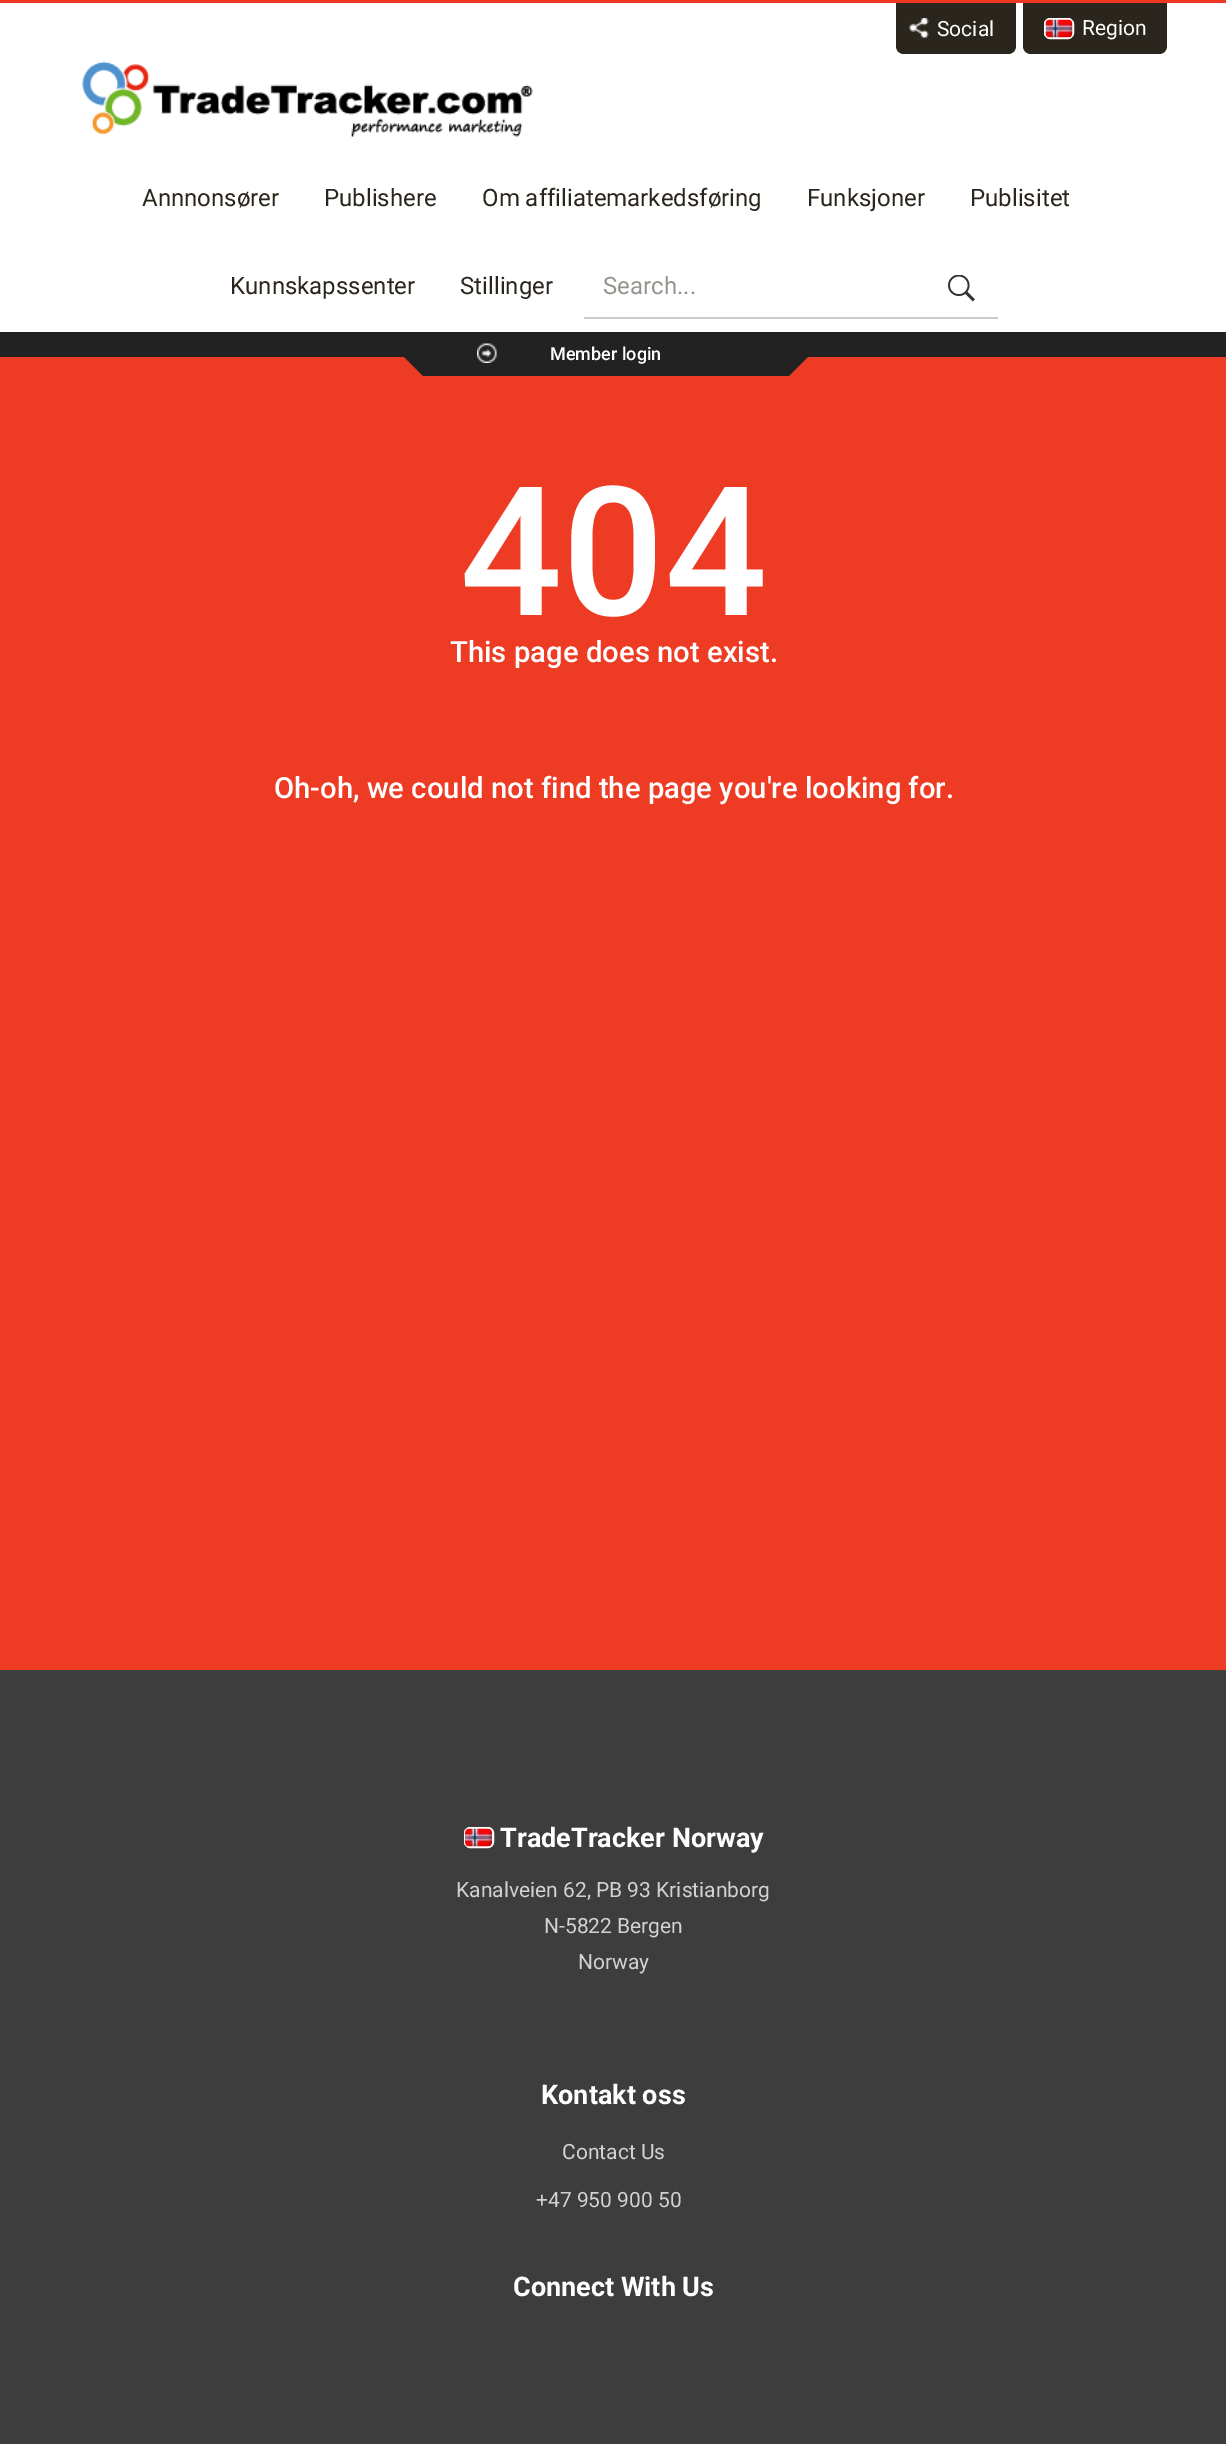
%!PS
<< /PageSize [1226 2444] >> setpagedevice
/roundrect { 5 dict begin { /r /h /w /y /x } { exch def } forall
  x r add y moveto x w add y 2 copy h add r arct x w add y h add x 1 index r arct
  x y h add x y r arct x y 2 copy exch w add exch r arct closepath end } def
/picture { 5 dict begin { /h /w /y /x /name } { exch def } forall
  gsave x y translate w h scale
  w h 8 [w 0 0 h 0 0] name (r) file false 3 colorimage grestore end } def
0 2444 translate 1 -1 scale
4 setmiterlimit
1 setgray
0 0 1226 2444 rectfill
0.933 0.22 0.137 setrgbcolor
0 0 1226 3 rectfill
0.165 0.149 0.114 setrgbcolor
newpath 896 3 moveto 1016 3 lineto 1016 46 lineto 1016 50.5 1012.5 54 1008 54 curveto 904 54 lineto 899.5 54 896 50.5 896 46 curveto closepath fill
(img1.rgb) 909 18 20 20 picture
/Roboto-Regular [21 0 0 -21 0 0] selectfont
1 setgray
937 36 moveto (Social) show
0.165 0.149 0.114 setrgbcolor
newpath 1023 3 moveto 1167 3 lineto 1167 46 lineto 1167 50.5 1163.5 54 1159 54 curveto 1031 54 lineto 1026.5 54 1023 50.5 1023 46 curveto closepath fill
1 setgray
2 setlinewidth
1045 19 28 19 5 roundrect stroke
(img2.rgb) 1045 19 28 19 picture
1082 35 moveto (Region) show
(img3.rgb) 82 61 451 76 picture
/Roboto-Regular [24 0 0 -24 0 0] selectfont
0.165 0.149 0.114 setrgbcolor
142 206 moveto (Annnonsører) show
324 206 moveto (Publishere) show
482 206 moveto (Om affiliatemarkedsføring) show
807 206 moveto (Funksjoner) show
970 206 moveto (Publisitet) show
230 294 moveto (Kunnskapssenter) show
460 294 moveto (Stillinger) show
0.8 setgray
584 317 414 2 rectfill
0.584 0.576 0.557 setrgbcolor
603 294 moveto (Search...) show
(img4.rgb) 948 275 27 27 picture
0.133 setgray
0 332 1226 25 rectfill
0.933 0.231 0.141 setrgbcolor
0 357 1226 1313 rectfill
0.133 setgray
newpath 404 357 moveto 808 357 lineto 789 376 lineto 423 376 lineto closepath fill
(img5.rgb) 477 343 20 20 picture
/Roboto-Medium [18 0 0 -18 0 0] selectfont
1 setgray
550 360 moveto (Member login) show
/Roboto-Medium [180 0 0 -180 0 0] selectfont
460 615 moveto (404) show
/Roboto-Medium [29.25 0 0 -29.25 0 0] selectfont
450 662 moveto (This page does not exist.) show
274 798 moveto (Oh-oh, we could not find the page you're looking for.) show
0.239 setgray
0 1670 1226 774 rectfill
1 setgray
465 1828 28 19 5 roundrect stroke
(img6.rgb) 465 1828 27 19 picture
/Roboto-Bold [27 0 0 -27 0 0] selectfont
500 1847 moveto (TradeTracker Norway) show
/Roboto-Regular [21 0 0 -21 0 0] selectfont
0.824 setgray
456 1897 moveto (Kanalveien 62, PB 93 Kristianborg) show
544 1933 moveto (N-5822 Bergen) show
578 1969 moveto (Norway) show
/Roboto-Bold [27 0 0 -27 0 0] selectfont
1 setgray
541 2104 moveto (Kontakt oss) show
/Roboto-Regular [21 0 0 -21 0 0] selectfont
0.824 setgray
562 2159 moveto (Contact Us) show
536 2207 moveto (+47 950 900 50) show
/Roboto-Bold [27 0 0 -27 0 0] selectfont
1 setgray
513 2296 moveto (Connect With Us) show
showpage
